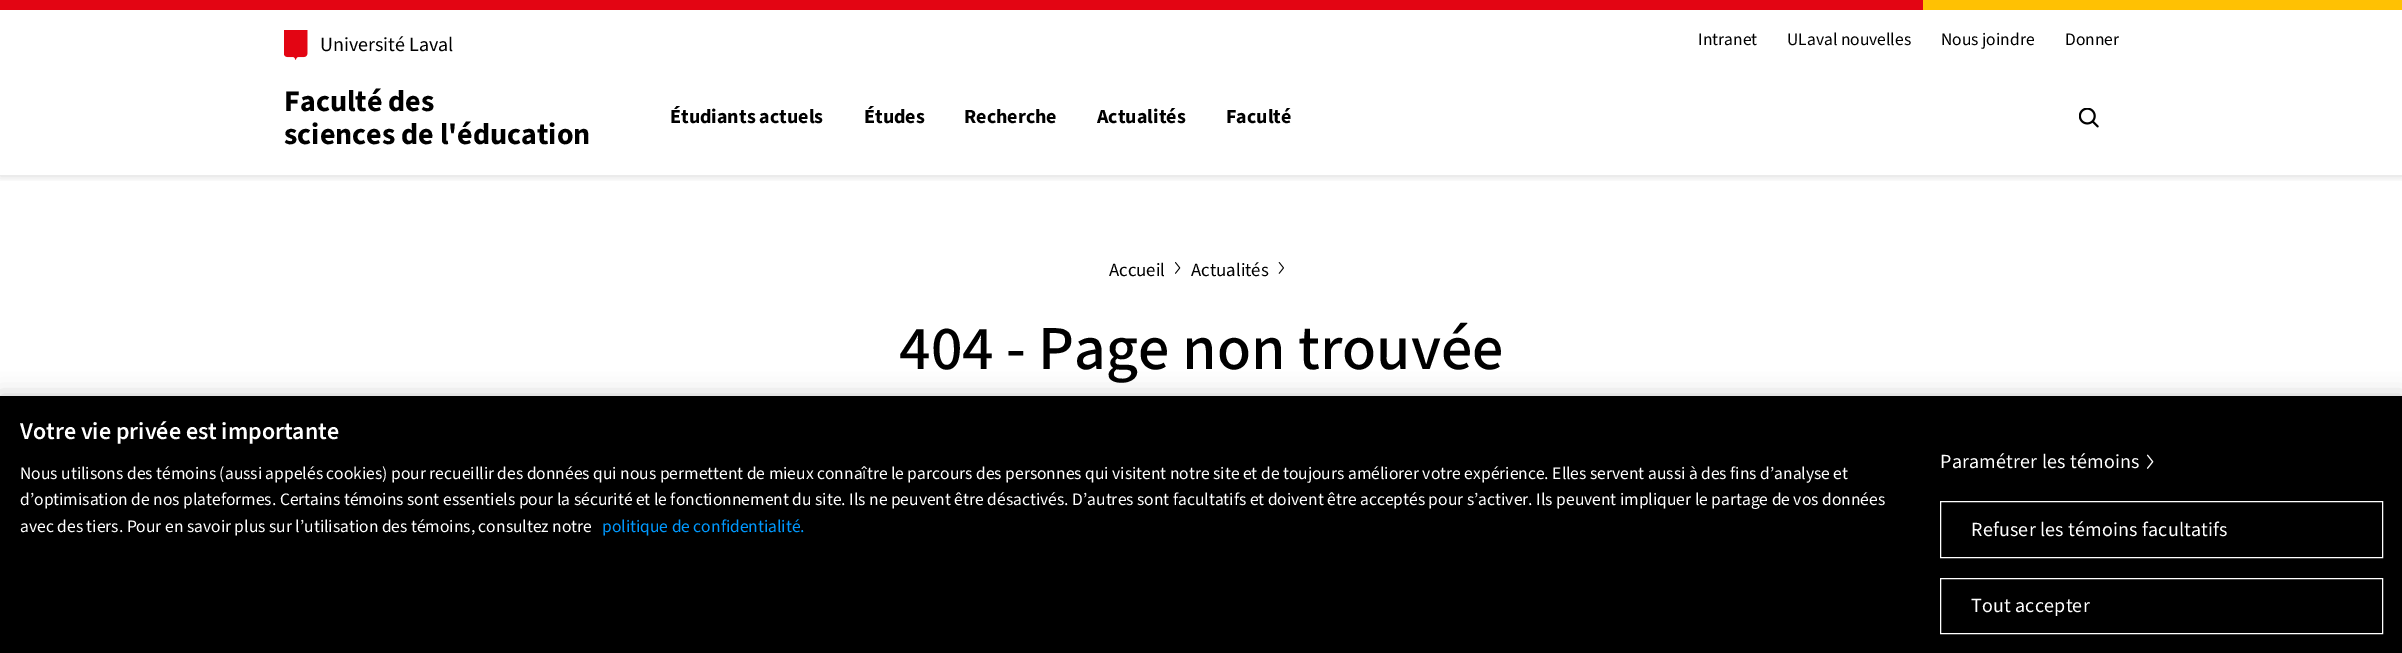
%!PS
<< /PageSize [2402 653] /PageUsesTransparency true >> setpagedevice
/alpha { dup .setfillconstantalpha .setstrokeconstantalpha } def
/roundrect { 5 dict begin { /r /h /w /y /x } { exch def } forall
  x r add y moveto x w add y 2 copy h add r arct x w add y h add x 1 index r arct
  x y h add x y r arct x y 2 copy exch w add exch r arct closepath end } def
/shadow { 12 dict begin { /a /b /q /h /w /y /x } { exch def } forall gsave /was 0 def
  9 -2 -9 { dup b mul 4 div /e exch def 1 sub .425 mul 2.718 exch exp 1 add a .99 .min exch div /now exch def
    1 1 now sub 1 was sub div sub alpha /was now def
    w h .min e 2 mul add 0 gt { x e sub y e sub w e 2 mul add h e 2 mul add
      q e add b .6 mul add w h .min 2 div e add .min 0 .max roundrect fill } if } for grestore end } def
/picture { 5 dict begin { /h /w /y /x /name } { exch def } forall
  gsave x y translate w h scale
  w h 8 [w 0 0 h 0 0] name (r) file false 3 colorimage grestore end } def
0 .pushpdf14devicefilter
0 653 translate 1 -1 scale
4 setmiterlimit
1 setgray
0 0 2402 653 rectfill
gsave
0 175 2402 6 rectclip
0 setgray
0 1 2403 175 0 4.5 0.15 shadow
grestore
0.89 0.02 0.075 setrgbcolor
0 0 1923 10 rectfill
1 0.757 0.012 setrgbcolor
1923 0 479 10 rectfill
(img1.rgb) 284 30 24 30 picture
/SourceSans3-Regular [20 0 0 -20 0 0] selectfont
0 setgray
320 51 moveto (Université Laval) show
/SourceSans3-Regular [17.5 0 0 -17.5 0 0] selectfont
1698 45 moveto (Intranet) show
1787 45 moveto (ULaval nouvelles) show
1941 45 moveto (Nous joindre) show
2065 45 moveto (Donner) show
/SourceSans3-Bold [30 0 0 -30 0 0] selectfont
284 111 moveto (Faculté des) show
284 144 moveto (sciences de l'éducation) show
/SourceSans3-Bold [20 0 0 -20 0 0] selectfont
670 123 moveto (Étudiants actuels) show
864 123 moveto (Études) show
964 123 moveto (Recherche) show
1097 123 moveto (Actualités) show
1226 123 moveto (Faculté) show
(img2.rgb) 2079 108 20 20 picture
/SourceSans3-Regular [18.75 0 0 -18.75 0 0] selectfont
1109 276 moveto (Accueil) show
(img3.rgb) 1175 262 6 12 picture
1191 276 moveto (Actualités) show
(img4.rgb) 1278 262 6 12 picture
/SourceSans3-Medium [62.5 0 0 -62.5 0 0] selectfont
899 369 moveto (404 - Page non trouvée) show
0 396 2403 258 0 11 0.2 shadow
0 396 2402 257 rectfill
/SourceSans3-SemiBold [24 0 0 -24 0 0] selectfont
1 setgray
20 439 moveto (Votre vie privée est importante) show
/SourceSans3-Regular [17.5 0 0 -17.5 0 0] selectfont
20 479 moveto (Nous utilisons des témoins \(aussi appelés cookies\) pour recueillir des données qui nous permettent de mieux connaître le parcours des personnes qui visitent notre site et de toujours améliorer votre expérience. Elles servent aussi à des fins d’analyse et) show
20 505 moveto (d’optimisation de nos plateformes. Certains témoins sont essentiels pour la sécurité et le fonctionnement du site. Ils ne peuvent être désactivés. D’autres sont facultatifs et doivent être acceptés pour s’activer. Ils peuvent impliquer le partage de vos données) show
20 532 moveto (avec des tiers. Pour en savoir plus sur l’utilisation des témoins, consultez notre) show
0 0.6 1 setrgbcolor
602 532 moveto (politique de confidentialité.) show
/SourceSans3-Regular [20 0 0 -20 0 0] selectfont
1 setgray
1940 468 moveto 0.2 0 (Paramétrer les témoins) ashow
(img5.rgb) 2146 454 8 15 picture
1940.5 501.5 442 56 rectstroke
1971 536 moveto 0.2 0 (Refuser les témoins facultatifs) ashow
1940.5 578.5 442 55 rectstroke
1971 612 moveto 0.2 0 (Tout accepter) ashow
.poppdf14devicefilter showpage
